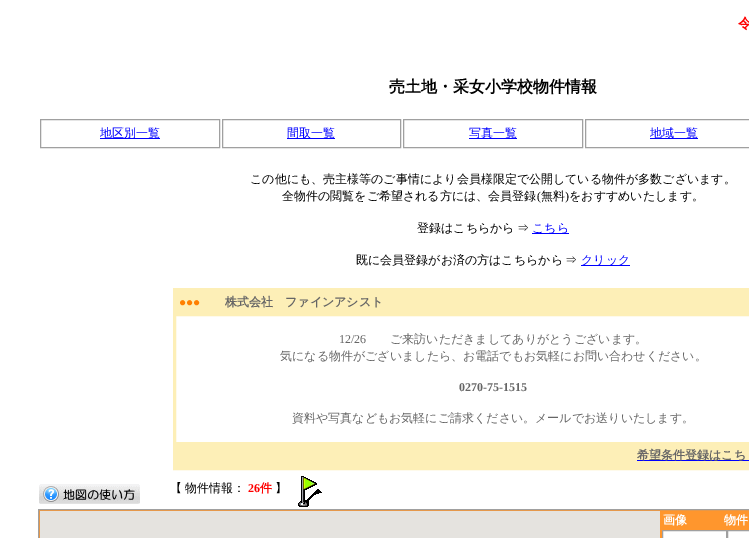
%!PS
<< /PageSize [749 538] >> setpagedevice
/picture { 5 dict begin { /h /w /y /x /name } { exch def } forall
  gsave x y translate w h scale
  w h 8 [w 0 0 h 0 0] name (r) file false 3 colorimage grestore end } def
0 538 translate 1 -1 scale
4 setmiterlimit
1 setgray
0 0 749 538 rectfill
/WenQuanYiZenHei-Bold [14 0 0 -14 0 0] selectfont
1 0 0 setrgbcolor
738 28 moveto (令) show
/WenQuanYiZenHei-Bold [16 0 0 -16 0 0] selectfont
0 setgray
389 92 moveto (売土地・采女小学校物件情報) show
0.627 setgray
40.5 119.5 179 28 rectstroke
0 0 1 setrgbcolor
100 138 60 1 rectfill
/WenQuanYiZenHei-Medium [12 0 0 -12 0 0] selectfont
100 137 moveto (地区別一覧) show
0.627 setgray
222.5 119.5 178 28 rectstroke
0 0 1 setrgbcolor
287 138 48 1 rectfill
287 137 moveto (間取一覧) show
0.627 setgray
403.5 119.5 179 28 rectstroke
0 0 1 setrgbcolor
469 138 48 1 rectfill
469 137 moveto (写真一覧) show
0.627 setgray
585.5 119.5 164 28 rectstroke
0 0 1 setrgbcolor
650 138 48 1 rectfill
650 137 moveto (地域一覧) show
0 setgray
250 183 moveto (この他にも、売主様等のご事情により会員様限定で公開している物件が多数ございます。) show
282 200 moveto (全物件の閲覧をご希望される方には、会員登録) show
/LiberationSerif-Regular [12 0 0 -12 0 0] selectfont
537 200 moveto (\() show
/WenQuanYiZenHei-Medium [12 0 0 -12 0 0] selectfont
541 200 moveto (無料) show
/LiberationSerif-Regular [12 0 0 -12 0 0] selectfont
565 200 moveto (\)) show
/WenQuanYiZenHei-Medium [12 0 0 -12 0 0] selectfont
569 200 moveto (をおすすめいたします。) show
417 232 moveto -1 0 32 (登録はこちらから ⇒) widthshow
0 0 1 setrgbcolor
532 233 37 1 rectfill
532 232 moveto (こちら) show
0 setgray
356 264 moveto -1 0 32 (既に会員登録がお済の方はこちらから ⇒) widthshow
0 0 1 setrgbcolor
581 265 49 1 rectfill
581 264 moveto (クリック) show
0.992 0.937 0.718 setrgbcolor
2 setlinewidth
174 289 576 180 rectstroke
175 290 574 25 rectfill
/LiberationSerif-Regular [12 0 0 -12 0 0] selectfont
1 0.502 0 setrgbcolor
179 306 moveto (●●●) show
/WenQuanYiZenHei-Bold [12 0 0 -12 0 0] selectfont
0.4 setgray
225 306 moveto (株式会社　ファインアシスト) show
0.992 0.937 0.718 setrgbcolor
1 setlinewidth
175.5 315.5 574 127 rectstroke
/LiberationSerif-Regular [12 0 0 -12 0 0] selectfont
0.4 setgray
339 343 moveto (12/26) show
/WenQuanYiZenHei-Medium [12 0 0 -12 0 0] selectfont
390 343 moveto (ご来訪いただきましてありがとうございます。) show
280 360 moveto (気になる物件がございましたら、お電話でもお気軽にお問い合わせください。) show
/LiberationSerif-Bold [12 0 0 -12 0 0] selectfont
459 391 moveto (0270-75-1515) show
/WenQuanYiZenHei-Medium [12 0 0 -12 0 0] selectfont
292 422 moveto (資料や写真などもお気軽にご請求ください。メールでお送りいたします。) show
0.992 0.937 0.718 setrgbcolor
175 443 574 25 rectfill
0 0 1 setrgbcolor
637 460 112 1 rectfill
/WenQuanYiZenHei-Bold [12 0 0 -12 0 0] selectfont
0.4 setgray
637 459 moveto (希望条件登録はこち) show
(img1.rgb) 39 484 101 20 picture
/WenQuanYiZenHei-Medium [12 0 0 -12 0 0] selectfont
0 setgray
170 492 moveto (【) show
185 492 moveto (物件情報：) show
/LiberationSerif-Bold [12 0 0 -12 0 0] selectfont
1 0 0 setrgbcolor
248 492 moveto (26) show
/WenQuanYiZenHei-Bold [12 0 0 -12 0 0] selectfont
260 492 moveto (件) show
/WenQuanYiZenHei-Medium [12 0 0 -12 0 0] selectfont
0 setgray
275 492 moveto (】) show
(img2.rgb) 298 476 24 31 picture
1 0.588 0.176 setrgbcolor
newpath 38.5 509.5 moveto 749.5 509.5 lineto 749.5 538.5 lineto 38.5 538.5 lineto closepath gsave fill grestore
0.627 setgray
stroke
0.898 0.89 0.875 setrgbcolor
40 511 620 27 rectfill
/WenQuanYiZenHei-Bold [12 0 0 -12 0 0] selectfont
1 setgray
663 524 moveto (画像) show
724 524 moveto (物件) show
newpath 662.5 530.5 moveto 726.5 530.5 lineto 726.5 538.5 lineto 662.5 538.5 lineto closepath gsave fill grestore
0.627 setgray
stroke
1 setgray
newpath 727.5 530.5 moveto 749.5 530.5 lineto 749.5 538.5 lineto 727.5 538.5 lineto closepath gsave fill grestore
0.627 setgray
stroke
showpage
